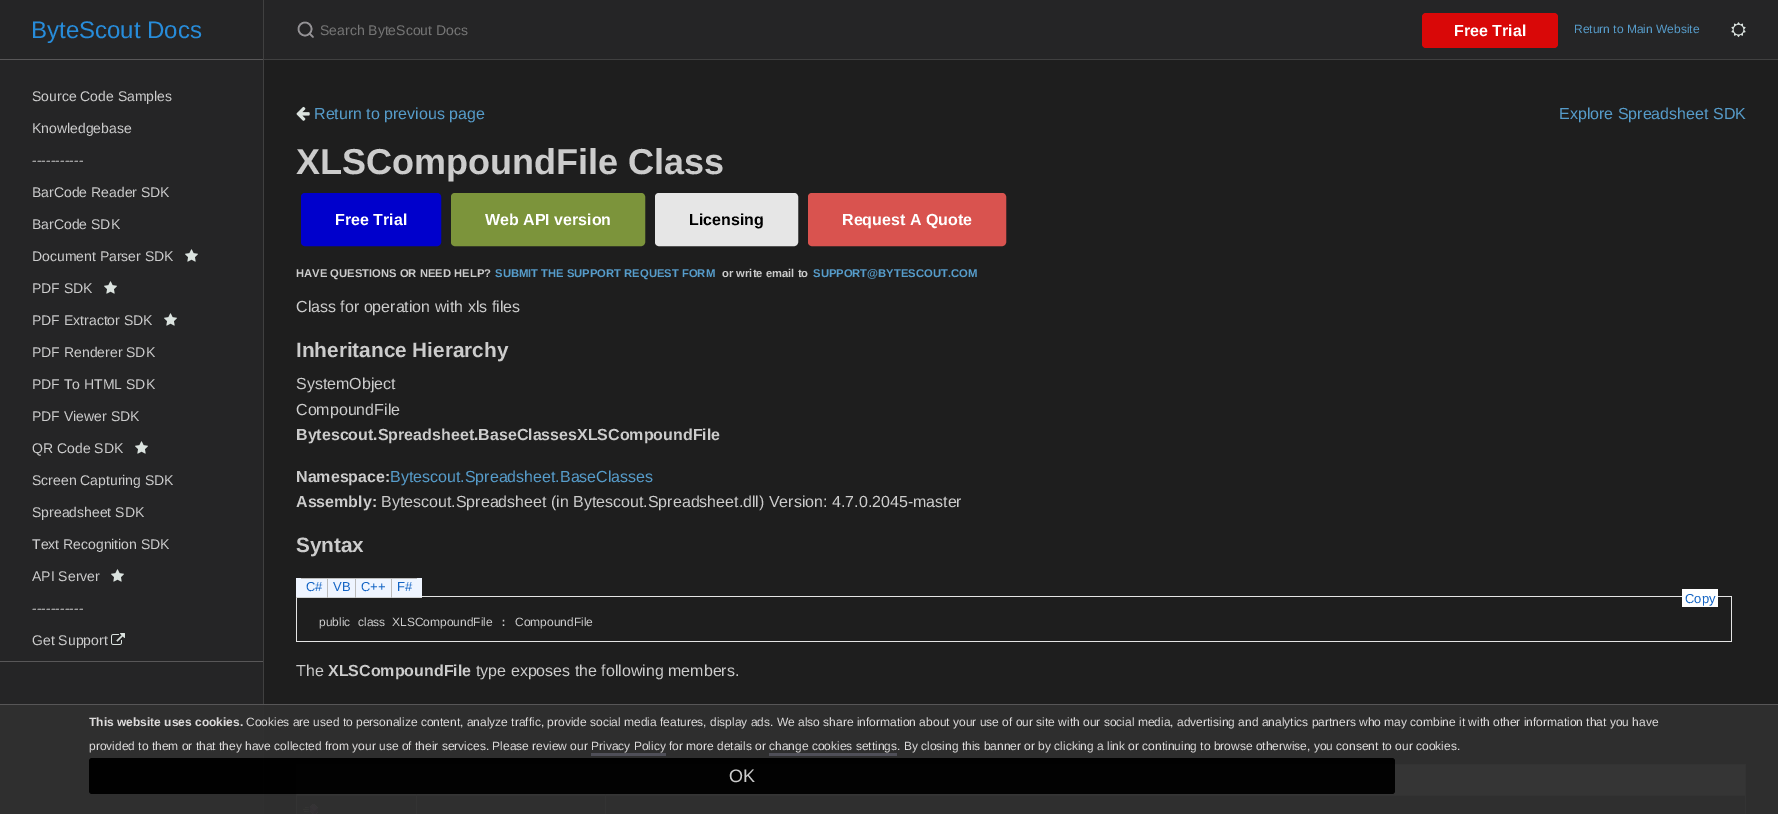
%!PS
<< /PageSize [1778 814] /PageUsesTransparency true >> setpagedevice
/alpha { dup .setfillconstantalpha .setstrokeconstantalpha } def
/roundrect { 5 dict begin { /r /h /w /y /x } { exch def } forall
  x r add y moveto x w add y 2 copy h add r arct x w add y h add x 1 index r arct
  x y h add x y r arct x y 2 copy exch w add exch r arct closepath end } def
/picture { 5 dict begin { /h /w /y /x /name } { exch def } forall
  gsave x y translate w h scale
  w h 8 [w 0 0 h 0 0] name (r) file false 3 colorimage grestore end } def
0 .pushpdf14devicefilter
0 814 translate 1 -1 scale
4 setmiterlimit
0.118 setgray
0 0 1778 814 rectfill
0.145 0.145 0.149 setrgbcolor
0 0 263 814 rectfill
0.251 setgray
263 0 1 814 rectfill
0.345 0.341 0.345 setrgbcolor
0 59 263 1 rectfill
/LiberationSans-Regular [24 0 0 -24 0 0] selectfont
0.153 0.549 0.855 setrgbcolor
31 38 moveto (ByteScout Docs) show
/LiberationSans-Regular [14 0 0 -14 0 0] selectfont
0.8 setgray
32 101 moveto (Source Code Samples) show
32 133 moveto (Knowledgebase) show
32 165 moveto (-----------) show
32 197 moveto (BarCode Reader SDK) show
32 229 moveto (BarCode SDK) show
32 261 moveto (Document Parser SDK) show
(img1.rgb) 185 249 13 13 picture
32 293 moveto (PDF SDK) show
(img1.rgb) 104 281 13 13 picture
32 325 moveto (PDF Extractor SDK) show
(img1.rgb) 164 313 13 13 picture
32 357 moveto (PDF Renderer SDK) show
32 389 moveto (PDF To HTML SDK) show
32 421 moveto (PDF Viewer SDK) show
32 453 moveto (QR Code SDK) show
(img1.rgb) 135 441 13 13 picture
32 485 moveto (Screen Capturing SDK) show
32 517 moveto (Spreadsheet SDK) show
32 549 moveto (Text Recognition SDK) show
32 581 moveto (API Server) show
(img1.rgb) 111 569 13 13 picture
32 613 moveto (-----------) show
32 645 moveto (Get Support) show
(img2.rgb) 111 633 14 12 picture
0.345 0.341 0.345 setrgbcolor
0 661 263 1 rectfill
0.145 0.145 0.149 setrgbcolor
264 0 1514 59 rectfill
0.251 setgray
264 59 1514 1 rectfill
0.584 0.576 0.588 setrgbcolor
1.6 setlinewidth
newpath 305 29 6.5 0 360 arc closepath stroke
1 setlinecap
1 setlinejoin
newpath 313 37 moveto 309.5 33.5 lineto stroke
0.459 setgray
320 35 moveto (Search ByteScout Docs) show
0.851 0.031 0.031 setrgbcolor
1422 13 136 35 4 roundrect fill
/LiberationSans-Bold [16 0 0 -16 0 0] selectfont
1 setgray
1454 36 moveto (Free Trial) show
/LiberationSans-Regular [12 0 0 -12 0 0] selectfont
0.337 0.612 0.792 setrgbcolor
1574 33 moveto (Return to Main Website) show
(img3.rgb) 1731 22 15 16 picture
(img4.rgb) 296 106 14 15 picture
/LiberationSans-Regular [16 0 0 -16 0 0] selectfont
314 119 moveto (Return to previous page) show
1559 119 moveto (Explore Spreadsheet SDK) show
/LiberationSans-Bold [36 0 0 -36 0 0] selectfont
0.8 setgray
296 174 moveto (XLSCompoundFile Class) show
0 0 0.8 setrgbcolor
303 195 136 49 2 roundrect gsave fill grestore
4 setlinewidth
0 setlinecap
0 setlinejoin
stroke
/LiberationSans-Bold [16 0 0 -16 0 0] selectfont
1 setgray
335 225 moveto (Free Trial) show
0.486 0.58 0.231 setrgbcolor
453 195 190 49 2 roundrect gsave fill grestore
stroke
1 setgray
485 225 moveto (Web API version) show
0.902 setgray
657 195 139 49 2 roundrect gsave fill grestore
stroke
0 setgray
689 225 moveto (Licensing) show
0.851 0.325 0.31 setrgbcolor
810 195 194 49 2 roundrect gsave fill grestore
stroke
1 setgray
842 225 moveto (Request A Quote) show
/LiberationSans-Bold [11.25 0 0 -11.25 0 0] selectfont
0.8 setgray
296 277 moveto (HAVE QUESTIONS OR NEED HELP?) show
0.337 0.612 0.792 setrgbcolor
495 277 moveto (SUBMIT THE SUPPORT REQUEST FORM) show
0.8 setgray
722 277 moveto (or write email to) show
0.337 0.612 0.792 setrgbcolor
813 277 moveto (SUPPORT@BYTESCOUT.COM) show
/LiberationSans-Regular [16 0 0 -16 0 0] selectfont
0.8 setgray
296 312 moveto (Class for operation with xls files) show
/LiberationSans-Bold [20.75 0 0 -20.75 0 0] selectfont
296 357 moveto (Inheritance Hierarchy) show
/LiberationSans-Regular [16 0 0 -16 0 0] selectfont
296 389 moveto (SystemObject) show
296 415 moveto (CompoundFile) show
/LiberationSans-Bold [16 0 0 -16 0 0] selectfont
296 440 moveto (Bytescout.Spreadsheet.BaseClassesXLSCompoundFile) show
296 482 moveto (Namespace:) show
/LiberationSans-Regular [16 0 0 -16 0 0] selectfont
0.337 0.612 0.792 setrgbcolor
390 482 moveto (Bytescout.Spreadsheet.BaseClasses) show
/LiberationSans-Bold [16 0 0 -16 0 0] selectfont
0.8 setgray
296 507 moveto (Assembly:) show
/LiberationSans-Regular [16 0 0 -16 0 0] selectfont
381 507 moveto (Bytescout.Spreadsheet \(in Bytescout.Spreadsheet.dll\) Version: 4.7.0.2045-master) show
/LiberationSans-Bold [20.75 0 0 -20.75 0 0] selectfont
296 552 moveto (Syntax) show
0.898 setgray
1731 596 1 46 rectfill
296 641 1436 1 rectfill
296 596 1 46 rectfill
0.937 0.961 1 setrgbcolor
296 578 5 20 rectfill
0.816 0.824 0.824 setrgbcolor
296 597 121 1 rectfill
0.937 0.961 1 setrgbcolor
417 578 5 20 rectfill
0.816 0.824 0.824 setrgbcolor
417 597 5 1 rectfill
0.937 0.961 1 setrgbcolor
301 579 26 18 rectfill
0.733 setgray
301 578 116 1 rectfill
/LiberationSans-Regular [13 0 0 -13 0 0] selectfont
0.075 0.392 0.769 setrgbcolor
306 591 moveto (C#) show
0.937 0.961 1 setrgbcolor
328 579 27 18 rectfill
0.733 setgray
327 578 1 20 rectfill
0.075 0.392 0.769 setrgbcolor
333 591 moveto (VB) show
0.937 0.961 1 setrgbcolor
356 579 35 18 rectfill
0.733 setgray
355 578 1 20 rectfill
0.075 0.392 0.769 setrgbcolor
361 591 moveto (C++) show
0.937 0.961 1 setrgbcolor
392 579 25 18 rectfill
0.733 setgray
391 578 1 20 rectfill
0.075 0.392 0.769 setrgbcolor
397 591 moveto (F#) show
0.898 setgray
422 596 1309 1 rectfill
1 setgray
1682 589 36 18 rectfill
0.075 0.392 0.769 setrgbcolor
1685 603 moveto (Copy) show
/LiberationSans-Regular [12 0 0 -12 0 0] selectfont
0.8 setgray
319 626 moveto (public) show
358 626 moveto (class) show
392 626 moveto (XLSCompoundFile) show
/DejaVuSansMono-Regular [12 0 0 -12 0 0] selectfont
500 626 moveto (:) show
/LiberationSans-Regular [12 0 0 -12 0 0] selectfont
515 626 moveto (CompoundFile) show
/LiberationSans-Regular [16 0 0 -16 0 0] selectfont
296 676 moveto (The) show
/LiberationSans-Bold [16 0 0 -16 0 0] selectfont
328 676 moveto (XLSCompoundFile) show
/LiberationSans-Regular [16 0 0 -16 0 0] selectfont
476 676 moveto (type exposes the following members.) show
0.733 setgray
296 764 1450 1 rectfill
1745 764 1 50 rectfill
296 764 1 50 rectfill
0.898 setgray
297 765 119 30 rectfill
417 765 188 30 rectfill
0.733 setgray
605 795 1141 1 rectfill
605 795 1 19 rectfill
416 795 190 1 rectfill
416 795 1 19 rectfill
296 795 121 1 rectfill
416 764 1 32 rectfill
0.898 setgray
606 765 1139 30 rectfill
0.733 setgray
605 764 1 32 rectfill
0.184 setgray
297 796 119 18 rectfill
(img5.rgb) 303 804 15 10 picture
417 796 188 18 rectfill
606 796 1139 18 rectfill
0.97 alpha
0 704 1778 110 rectfill
0.345 0.341 0.345 setrgbcolor
0 704 1778 1 rectfill
/LiberationSans-Bold [12 0 0 -12 0 0] selectfont
1 alpha
0.867 0.859 0.859 setrgbcolor
89 726 moveto (This website uses cookies.) show
/LiberationSans-Regular [12 0 0 -12 0 0] selectfont
246 726 moveto (Cookies are used to personalize content, analyze traffic, provide social media features, display ads. We also share information about your use of our site with our social media, advertising and analytics partners who may combine it with other information that you have) show
89 750 moveto (provided to them or that they have collected from your use of their services. Please review our) show
591 750 moveto (Privacy Policy for more details or change cookies settings. By closing this banner or by clicking a link or continuing to browse otherwise, you consent to our cookies.) show
0.31 0.31 0.345 setrgbcolor
591 753 75 3 rectfill
769 753 128 3 rectfill
0.97 alpha
0 setgray
89 758 1306 36 3 roundrect fill
/LiberationSans-Regular [18 0 0 -18 0 0] selectfont
1 alpha
0.8 setgray
729 782 moveto (OK) show
.poppdf14devicefilter showpage
